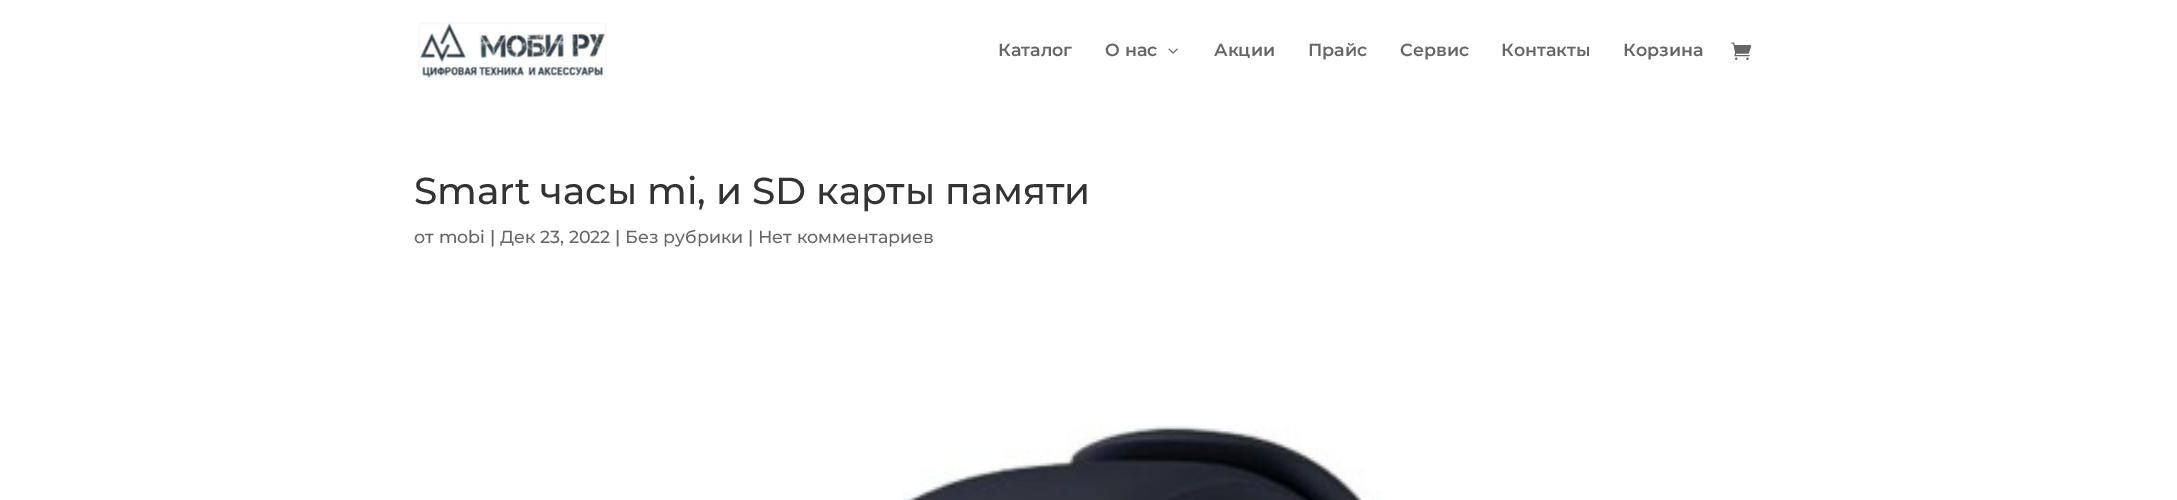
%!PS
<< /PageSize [2177 500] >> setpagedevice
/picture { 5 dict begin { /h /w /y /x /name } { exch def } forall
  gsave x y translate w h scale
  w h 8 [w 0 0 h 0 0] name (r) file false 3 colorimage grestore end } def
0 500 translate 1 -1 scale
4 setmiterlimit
1 setgray
0 0 2177 500 rectfill
(img1.rgb) 418 22 189 56 picture
/Montserrat-SemiBold [17.5 0 0 -17.5 0 0] selectfont
0.4 setgray
998 56 moveto (Каталог) show
1105 56 moveto (О нас) show
(img2.rgb) 1168 48 10 6 picture
1214 56 moveto (Акции) show
1308 56 moveto (Прайс) show
1400 56 moveto (Сервис) show
1501 56 moveto (Контакты) show
1623 56 moveto (Корзина) show
(img3.rgb) 1731 42 21 18 picture
/Montserrat-Medium [37.5 0 0 -37.5 0 0] selectfont
0.2 setgray
414 204 moveto (Smart часы mi, и SD карты памяти) show
/Montserrat-Medium [17.5 0 0 -17.5 0 0] selectfont
0.4 setgray
414 243 moveto (от mobi | Дек 23, 2022 | Без рубрики | Нет комментариев) show
(img4.rgb) 902 425 481 75 picture
showpage
